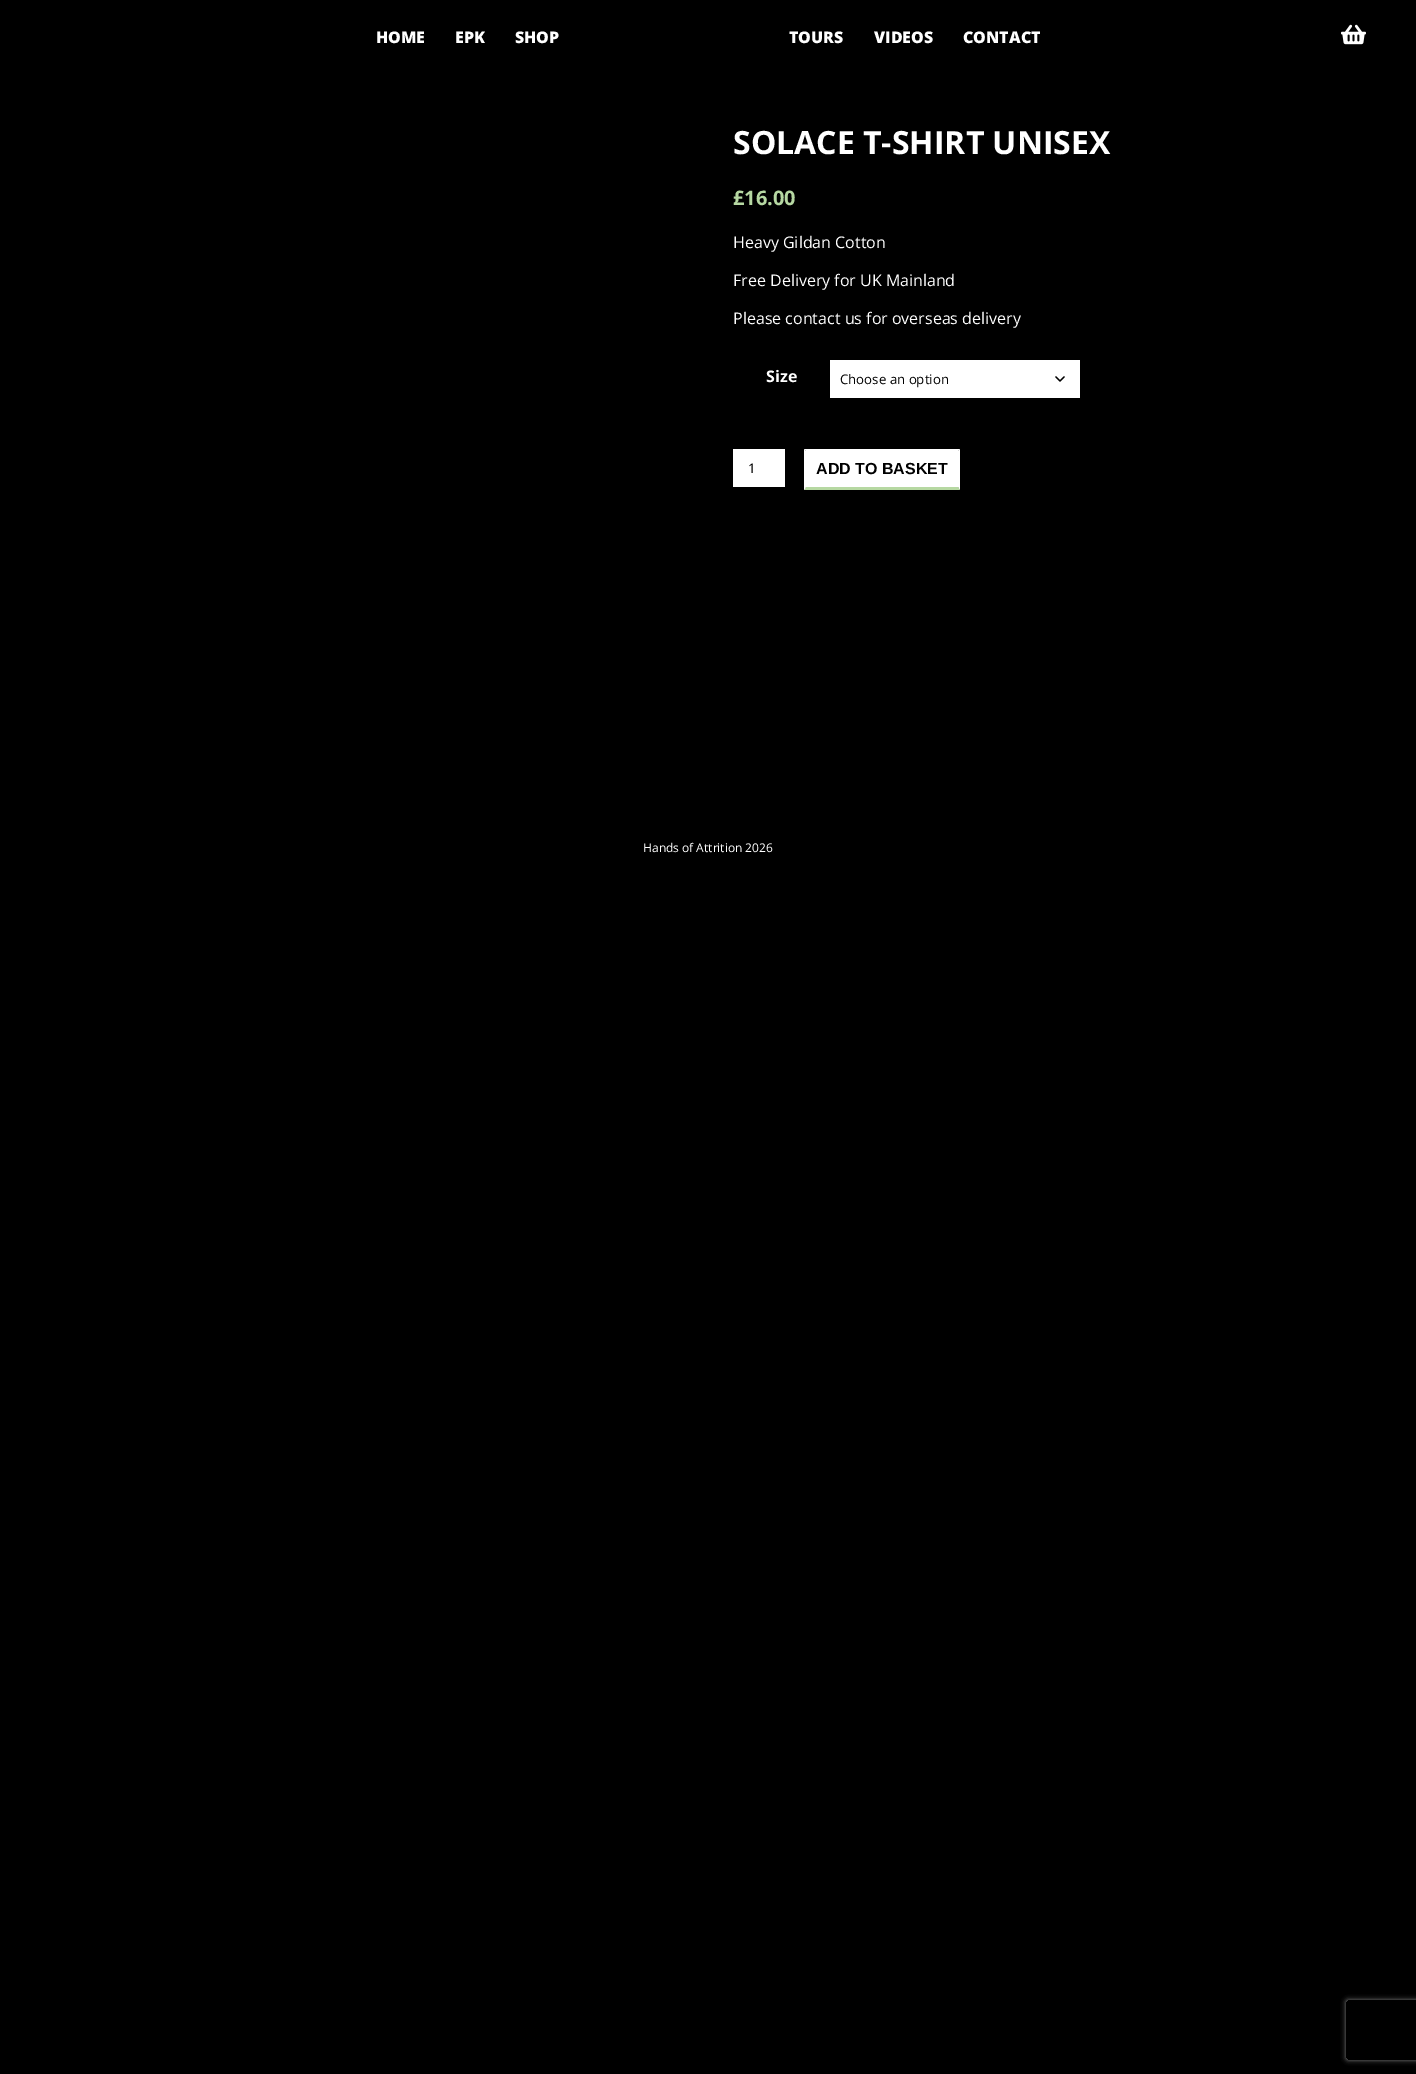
%!PS
<< /PageSize [1416 2074] /PageUsesTransparency true >> setpagedevice
/alpha { dup .setfillconstantalpha .setstrokeconstantalpha } def
/roundrect { 5 dict begin { /r /h /w /y /x } { exch def } forall
  x r add y moveto x w add y 2 copy h add r arct x w add y h add x 1 index r arct
  x y h add x y r arct x y 2 copy exch w add exch r arct closepath end } def
/shadow { 12 dict begin { /a /b /q /h /w /y /x } { exch def } forall gsave /was 0 def
  9 -2 -9 { dup b mul 4 div /e exch def 1 sub .425 mul 2.718 exch exp 1 add a .99 .min exch div /now exch def
    1 1 now sub 1 was sub div sub alpha /was now def
    w h .min e 2 mul add 0 gt { x e sub y e sub w e 2 mul add h e 2 mul add
      q e add b .6 mul add w h .min 2 div e add .min 0 .max roundrect fill } if } for grestore end } def
/picture { 5 dict begin { /h /w /y /x /name } { exch def } forall
  gsave x y translate w h scale
  w h 8 [w 0 0 h 0 0] name (r) file false 3 colorimage grestore end } def
0 .pushpdf14devicefilter
0 2074 translate 1 -1 scale
4 setmiterlimit
0 setgray
0 0 1416 2074 rectfill
/OpenSans-ExtraBold [16 0 0 -16 0 0] selectfont
1 setgray
376 43 moveto (HOME) show
455 43 moveto (EPK) show
515 43 moveto (SHOP) show
789 43 moveto (TOURS) show
874 43 moveto (VIDEOS) show
963 43 moveto (CONTACT) show
(img1.rgb) 1341 24 25 21 picture
/OpenSans-Bold [32 0 0 -32 0 0] selectfont
733 154 moveto (SOLACE T-SHIRT UNISEX) show
/OpenSans-Bold [20 0 0 -20 0 0] selectfont
0.714 0.847 0.635 setrgbcolor
733 205 moveto (£16.00) show
/OpenSans-Regular [16 0 0 -16 0 0] selectfont
1 setgray
733 248 moveto (Heavy Gildan Cotton) show
733 286 moveto (Free Delivery for UK Mainland) show
733 324 moveto (Please contact us for overseas delivery) show
/OpenSans-Bold [16 0 0 -16 0 0] selectfont
766 382 moveto (Size) show
830 360 250 38 rectfill
0 setgray
1.3 setlinewidth
1 setlinecap
1 setlinejoin
newpath 1056 377 moveto 1060 381 lineto 1064 377 lineto stroke
/OpenSans-Regular [13.25 0 0 -13.25 0 0] selectfont
840 384 moveto (Choose an option) show
1 setgray
733 449 52 38 rectfill
0 setgray
748 473 moveto (1) show
1 setgray
806 451 152 36 rectfill
newpath 805 449 moveto 804 449 lineto 806 451 lineto 958 451 lineto 960 449 lineto 959 449 lineto closepath fill
newpath 960 489 moveto 960 449 lineto 958 451 lineto 958 487 lineto 960 490 lineto closepath fill
0.714 0.847 0.635 setrgbcolor
newpath 805 490 moveto 960 490 lineto 958 487 lineto 806 487 lineto 804 490 lineto closepath fill
1 setgray
newpath 806 451 moveto 804 449 lineto 804 490 lineto 806 487 lineto closepath fill
/LiberationSans-Bold [16 0 0 -16 0 0] selectfont
0 setgray
816 474 moveto (ADD TO BASKET) show
/OpenSans-Regular [12 0 0 -12 0 0] selectfont
1 setgray
643 852 moveto (Hands of Attrition 2026) show
gsave
newpath 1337 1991 moveto 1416 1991 lineto 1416 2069 lineto 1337 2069 lineto closepath 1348 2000 moveto 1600 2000 lineto 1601 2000 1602 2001 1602 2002 curveto 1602 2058 lineto 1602 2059 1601 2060 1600 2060 curveto 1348 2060 lineto 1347 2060 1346 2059 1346 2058 curveto 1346 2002 lineto 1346 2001 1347 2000 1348 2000 curveto closepath eoclip newpath
0.502 setgray
1346 2000 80 60 2 2.5 1 shadow
grestore
.poppdf14devicefilter showpage
